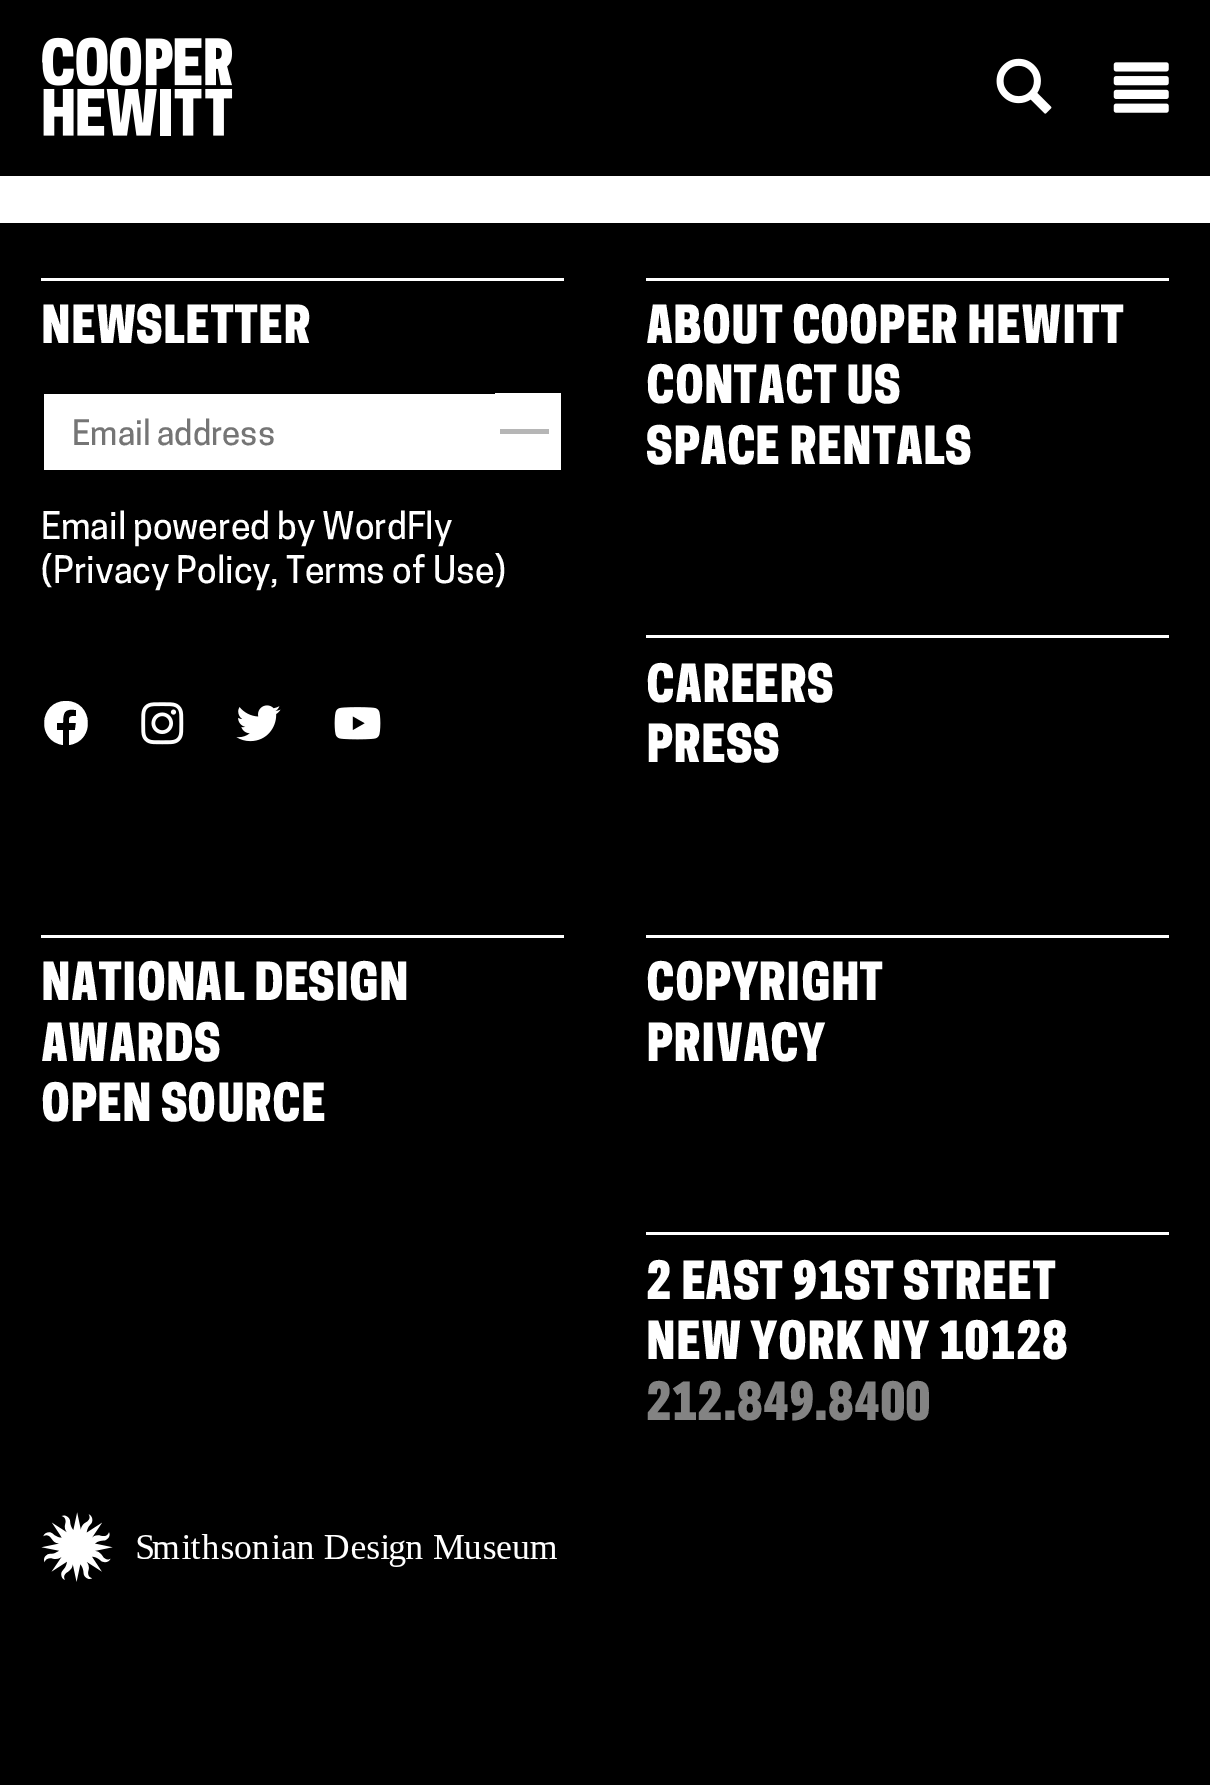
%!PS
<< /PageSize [1210 1785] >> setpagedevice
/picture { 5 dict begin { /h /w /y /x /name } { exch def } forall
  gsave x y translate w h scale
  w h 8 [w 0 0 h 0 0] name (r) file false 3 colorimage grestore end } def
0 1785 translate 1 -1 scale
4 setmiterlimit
1 setgray
0 0 1210 1785 rectfill
0 setgray
0 0 1210 176 rectfill
(img1.rgb) 42 37 191 99 picture
(img2.rgb) 996 58 56 56 picture
(img3.rgb) 1113 62 56 51 picture
0 223 1210 1562 rectfill
1 setgray
41 278 523 3 rectfill
/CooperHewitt-SemiBold [49.5 0 0 -49.5 0 0] selectfont
41 343 moveto (NEWSLETTER) show
44 394 451 76 rectfill
/CooperHewitt-Medium [33 0 0 -33 0 0] selectfont
0.459 setgray
72 445 moveto (Email address) show
1 setgray
495 393 66 77 rectfill
0.714 setgray
500 429 49 5 rectfill
/CooperHewitt-Medium [35.75 0 0 -35.75 0 0] selectfont
1 setgray
41 539 moveto (Email powered by WordFly) show
41 583 moveto (\(Privacy Policy, Terms of Use\)) show
newpath 66 701 moveto 39 701 36 741 63 745 curveto 63 730 lineto 57 730 lineto 57 723 lineto 63 723 lineto 63 713 64 708 76 710 curveto 76 716 lineto 69 716 69 717 69 723 curveto 76 723 lineto 75 730 lineto 69 730 lineto 69 745 lineto 96 741 93 701 66 701 curveto closepath fill
(img4.rgb) 141 702 43 43 picture
(img5.rgb) 236 705 45 37 picture
(img6.rgb) 334 707 47 33 picture
646 278 523 3 rectfill
/CooperHewitt-SemiBold [49.5 0 0 -49.5 0 0] selectfont
646 343 moveto (ABOUT COOPER HEWITT) show
646 403 moveto (CONTACT US) show
646 464 moveto (SPACE RENTALS) show
646 635 523 3 rectfill
646 702 moveto (CAREERS) show
646 762 moveto (PRESS) show
41 935 523 3 rectfill
41 1000 moveto (NATIONAL DESIGN) show
41 1061 moveto (AWARDS) show
41 1121 moveto (OPEN SOURCE) show
646 935 523 3 rectfill
646 1000 moveto (COPYRIGHT) show
646 1061 moveto (PRIVACY) show
646 1232 523 3 rectfill
646 1299 moveto (2 EAST 91ST STREET) show
646 1359 moveto (NEW YORK NY 10128) show
0.514 setgray
646 1420 moveto (212.849.8400) show
(img7.rgb) 41 1512 516 70 picture
showpage
